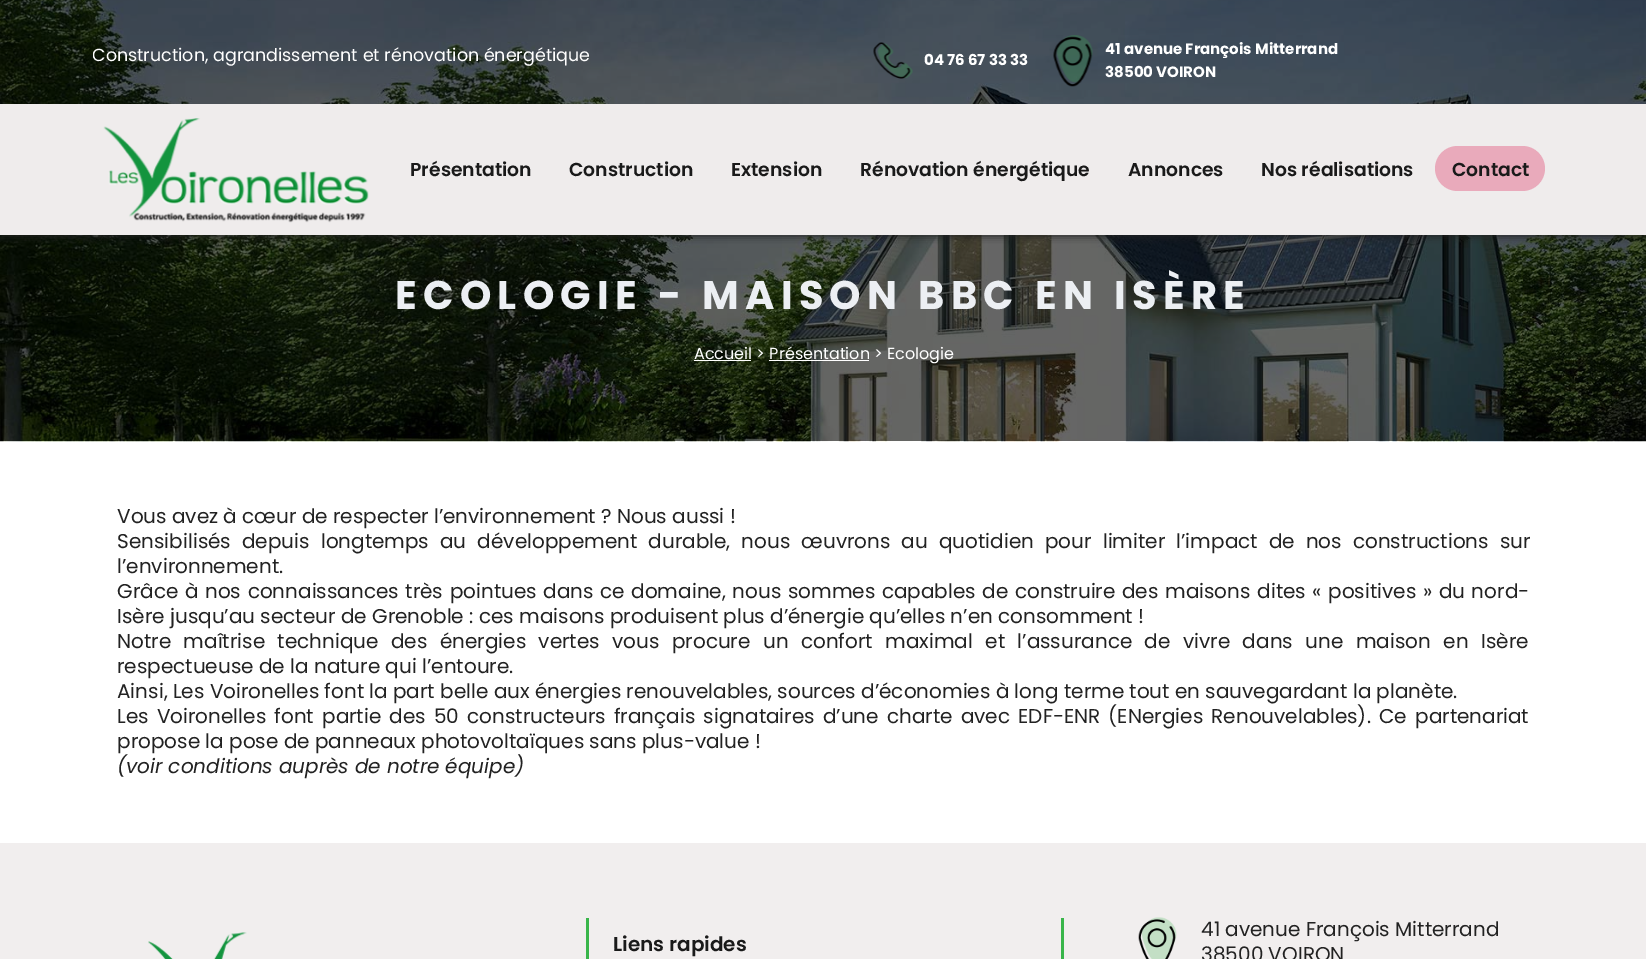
%!PS
<< /PageSize [1646 959] /PageUsesTransparency true >> setpagedevice
/alpha { dup .setfillconstantalpha .setstrokeconstantalpha } def
/roundrect { 5 dict begin { /r /h /w /y /x } { exch def } forall
  x r add y moveto x w add y 2 copy h add r arct x w add y h add x 1 index r arct
  x y h add x y r arct x y 2 copy exch w add exch r arct closepath end } def
/shadow { 12 dict begin { /a /b /q /h /w /y /x } { exch def } forall gsave /was 0 def
  9 -2 -9 { dup b mul 4 div /e exch def 1 sub .425 mul 2.718 exch exp 1 add a .99 .min exch div /now exch def
    1 1 now sub 1 was sub div sub alpha /was now def
    w h .min e 2 mul add 0 gt { x e sub y e sub w e 2 mul add h e 2 mul add
      q e add b .6 mul add w h .min 2 div e add .min 0 .max roundrect fill } if } for grestore end } def
/picture { 5 dict begin { /h /w /y /x /name } { exch def } forall
  gsave x y translate w h scale
  w h 8 [w 0 0 h 0 0] name (r) file false 3 colorimage grestore end } def
0 .pushpdf14devicefilter
0 959 translate 1 -1 scale
4 setmiterlimit
1 setgray
0 0 1646 959 rectfill
(img4.rgb) 0 0 1646 442 picture
gsave
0 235 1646 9 rectclip
0.133 setgray
1 -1 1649 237 0 4 1 shadow
grestore
gsave
93 0 1462 104 rectclip
/Poppins-Regular [17.5 0 0 -17.5 0 0] selectfont
92 61 moveto (Construction, agrandissement et rénovation énergétique) show
grestore
(img1.rgb) 873 42 40 37 picture
/Poppins-Bold [15 0 0 -15 0 0] selectfont
924 65 moveto (04 76 67 33 33) show
(img2.rgb) 1053 35 40 52 picture
1105 54 moveto (41 avenue François Mitterrand) show
1105 77 moveto (38500 VOIRON) show
0.937 0.925 0.925 setrgbcolor
0 104 1646 131 rectfill
(img3.rgb) 103 118 266 105 picture
/Poppins-SemiBold [18.75 0 0 -18.75 0 0] selectfont
0.102 setgray
410 176 moveto (Présentation) show
569 176 moveto (Construction) show
731 176 moveto (Extension) show
860 176 moveto (Rénovation énergétique) show
1128 176 moveto (Annonces) show
1261 176 moveto (Nos réalisations) show
0.914 0.667 0.733 setrgbcolor
1435 146 110 45 22.5 roundrect fill
0.102 setgray
1452 176 moveto (Contact) show
/Poppins-Bold [40 0 0 -40 0 0] selectfont
0.925 0.937 0.953 setrgbcolor
395 309 moveto 6.25 0 (ECOLOGIE - MAISON BBC EN ISÈRE) ashow
1 setgray
694 360 57 1 rectfill
/Poppins-Regular [16 0 0 -16 0 0] selectfont
694 359 moveto (Accueil > Présentation > Ecologie) show
769 360 100 1 rectfill
/Poppins-Regular [20 0 0 -20 0 0] selectfont
0.133 setgray
117 523 moveto (Vous avez à cœur de respecter l’environnement ? Nous aussi !) show
117 548 moveto 5.75 0 32 (Sensibilisés depuis longtemps au développement durable, nous œuvrons au quotidien pour limiter l’impact de nos constructions sur) widthshow
117 573 moveto (l’environnement.) show
117 598 moveto 1.3 0 32 (Grâce à nos connaissances très pointues dans ce domaine, nous sommes capables de construire des maisons dites « positives » du nord-) widthshow
117 623 moveto (Isère jusqu’au secteur de Grenoble : ces maisons produisent plus d’énergie qu’elles n’en consomment !) show
117 648 moveto 7.1 0 32 (Notre maîtrise technique des énergies vertes vous procure un confort maximal et l’assurance de vivre dans une maison en Isère) widthshow
117 673 moveto (respectueuse de la nature qui l’entoure.) show
117 698 moveto (Ainsi, Les Voironelles font la part belle aux énergies renouvelables, sources d’économies à long terme tout en sauvegardant la planète.) show
117 723 moveto 2.9 0 32 (Les Voironelles font partie des 50 constructeurs français signataires d’une charte avec EDF-ENR \(ENergies Renouvelables\). Ce partenariat) widthshow
117 748 moveto (propose la pose de panneaux photovoltaïques sans plus-value !) show
/Poppins-Italic [20 0 0 -20 0 0] selectfont
117 773 moveto (\(voir conditions auprès de notre équipe\)) show
0.945 0.933 0.933 setrgbcolor
0 843 1646 116 rectfill
(img5.rgb) 148 932 99 27 picture
0.224 0.71 0.29 setrgbcolor
586 918 3 41 rectfill
/Poppins-SemiBold [20 0 0 -20 0 0] selectfont
0.102 setgray
613 951 moveto (Liens rapides) show
0.224 0.71 0.29 setrgbcolor
1061 918 3 41 rectfill
(img6.rgb) 1138 917 39 42 picture
/Poppins-Regular [20 0 0 -20 0 0] selectfont
0.133 setgray
1201 936 moveto (41 avenue François Mitterrand) show
1201 961 moveto (38500 VOIRON) show
.poppdf14devicefilter showpage
